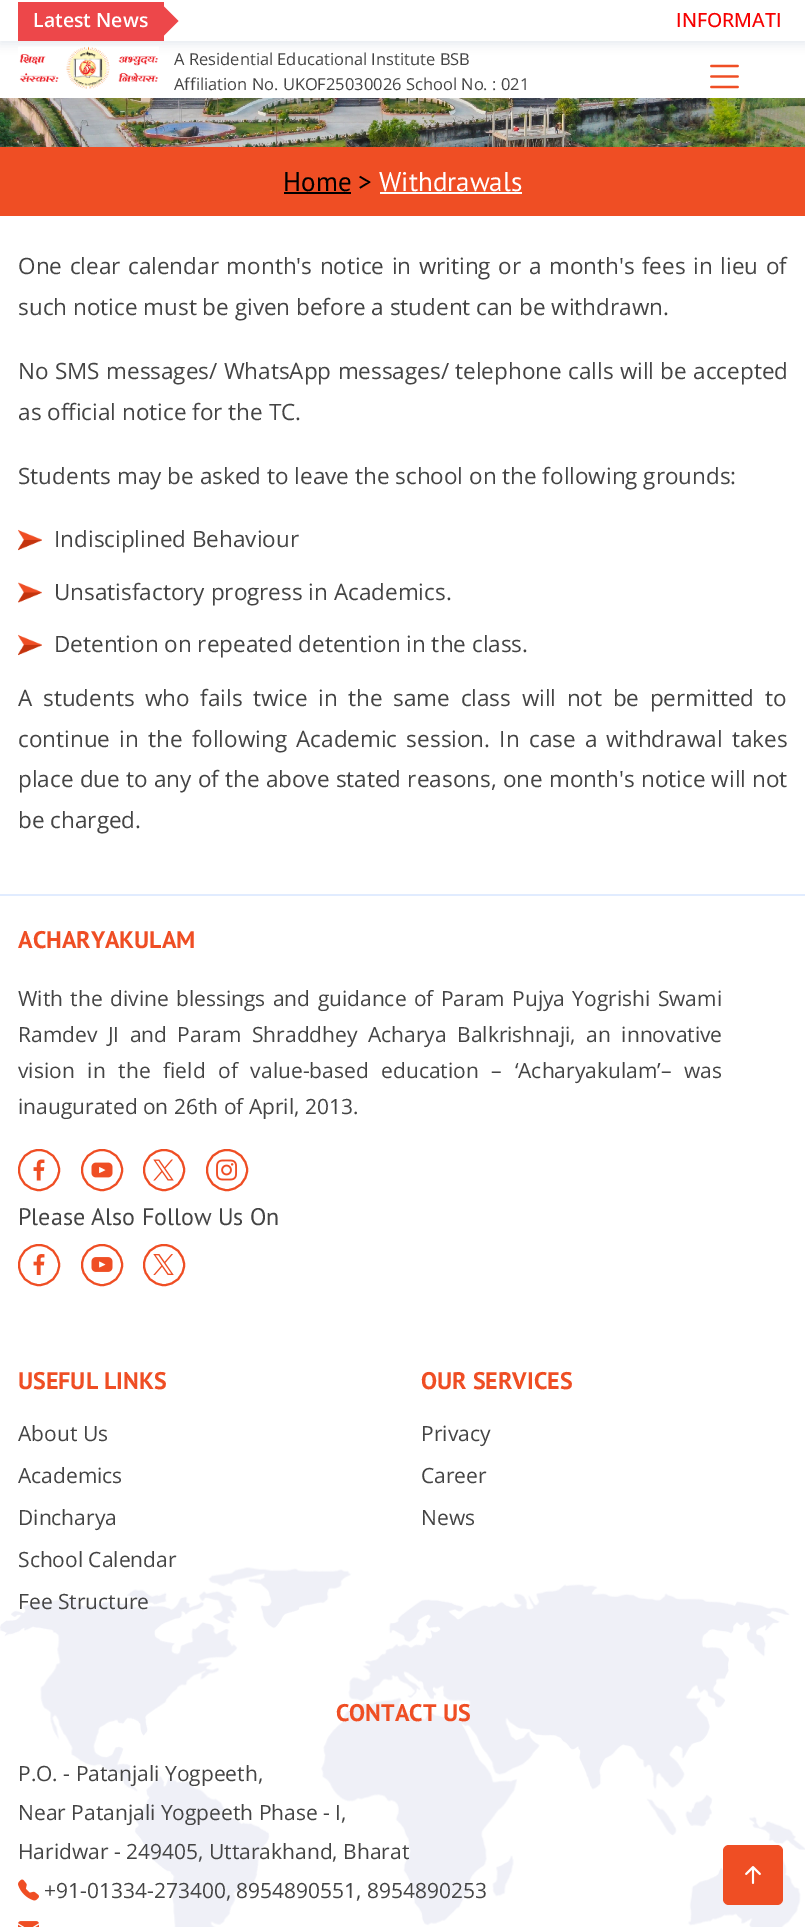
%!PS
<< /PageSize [805 1927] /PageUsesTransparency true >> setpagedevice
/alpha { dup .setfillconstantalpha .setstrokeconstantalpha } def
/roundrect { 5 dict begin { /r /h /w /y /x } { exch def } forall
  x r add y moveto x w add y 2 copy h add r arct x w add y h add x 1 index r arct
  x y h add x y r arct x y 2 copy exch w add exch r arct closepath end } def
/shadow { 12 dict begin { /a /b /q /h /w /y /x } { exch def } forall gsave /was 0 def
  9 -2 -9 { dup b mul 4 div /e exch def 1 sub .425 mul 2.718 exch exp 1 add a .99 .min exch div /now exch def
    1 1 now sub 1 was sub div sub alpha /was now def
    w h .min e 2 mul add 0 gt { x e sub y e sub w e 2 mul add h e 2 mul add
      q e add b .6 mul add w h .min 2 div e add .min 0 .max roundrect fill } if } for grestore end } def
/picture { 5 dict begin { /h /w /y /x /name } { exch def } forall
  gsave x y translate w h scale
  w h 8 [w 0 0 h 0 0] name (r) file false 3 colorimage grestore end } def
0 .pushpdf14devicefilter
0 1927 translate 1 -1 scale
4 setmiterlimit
1 setgray
0 0 805 1927 rectfill
(img3.rgb) 0 98 805 49 picture
0.004 0.161 0.439 setrgbcolor
0 3 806 98 0 15 0.1 shadow
1 setgray
0 41 805 57 rectfill
0.004 0.161 0.439 setrgbcolor
0 3 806 41 0 5 0.1 shadow
1 setgray
0 0 805 41 rectfill
0.929 0.278 0.29 setrgbcolor
18 2 146 39 rectfill
/OpenSans-SemiBold [19.5 0 0 -19.5 0 0] selectfont
1 setgray
33 27 moveto (Latest News) show
0.929 0.278 0.29 setrgbcolor
newpath 163.5 36 moveto 163.5 6 lineto 178.5 21 lineto closepath fill
/OpenSans-Medium [19.5 0 0 -19.5 0 0] selectfont
0.965 0 0 setrgbcolor
676 27 moveto (INFORMATI) show
(img1.rgb) 18 46 141 43 picture
/OpenSans-Regular [16.5 0 0 -16.5 0 0] selectfont
0.267 setgray
174 65 moveto (A Residential Educational Institute BSB) show
174 90 moveto (Affiliation No. UKOF25030026 School No. : 021) show
(img2.rgb) 710 64 29 25 picture
0.937 0.306 0.141 setrgbcolor
0 147 805 69 rectfill
/PTSans-Regular [27 0 0 -27 0 0] selectfont
0 setgray
283 191 moveto (Home >) show
284 192 67 2 rectfill
1 setgray
379 191 moveto (Withdrawals) show
380 192 142 2 rectfill
/OpenSans-Regular [22.5 0 0 -22.5 0 0] selectfont
0.267 setgray
18 274 moveto 1.75 0 32 (One clear calendar month's notice in writing or a month's fees in lieu of) widthshow
18 315 moveto (such notice must be given before a student can be withdrawn.) show
18 379 moveto 0.5 0 32 (No SMS messages/ WhatsApp messages/ telephone calls will be accepted) widthshow
18 420 moveto (as official notice for the TC.) show
18 484 moveto (Students may be asked to leave the school on the following grounds:) show
(img4.rgb) 18 529 24 22 picture
54 547 moveto (Indisciplined Behaviour) show
(img5.rgb) 18 582 24 21 picture
54 600 moveto (Unsatisfactory progress in Academics.) show
(img4.rgb) 18 634 24 22 picture
54 652 moveto (Detention on repeated detention in the class.) show
18 706 moveto 4.75 0 32 (A students who fails twice in the same class will not be permitted to) widthshow
18 747 moveto 3.4 0 32 (continue in the following Academic session. In case a withdrawal takes) widthshow
18 787 moveto 0.4 0 32 (place due to any of the above stated reasons, one month's notice will not) widthshow
18 828 moveto (be charged.) show
(img6.rgb) 0 1567 805 360 picture
0.882 0.925 1 setrgbcolor
0 894 805 2 rectfill
/PTSans-Bold [24 0 0 -24 0 0] selectfont
0.937 0.306 0.141 setrgbcolor
18 948 moveto (ACHARYAKULAM) show
/OpenSans-Regular [21 0 0 -21 0 0] selectfont
0.267 setgray
18 1006 moveto 1.9 0 32 (With the divine blessings and guidance of Param Pujya Yogrishi Swami) widthshow
18 1042 moveto 5 0 32 (Ramdev JI and Param Shraddhey Acharya Balkrishnaji, an innovative) widthshow
18 1078 moveto 7.25 0 32 (vision in the field of value-based education – ‘Acharyakulam’– was) widthshow
18 1114 moveto (inaugurated on 26th of April, 2013.) show
0.937 0.306 0.141 setrgbcolor
2 setlinewidth
newpath 39 1170 20 0 360 arc closepath stroke
(img7.rgb) 33 1159 12 22 picture
newpath 102 1170 20 0 360 arc closepath stroke
(img8.rgb) 91 1162 22 16 picture
newpath 164 1170 20 0 360 arc closepath stroke
(img9.rgb) 153 1159 21 22 picture
newpath 227 1170 20 0 360 arc closepath stroke
(img10.rgb) 216 1159 22 22 picture
/PTSans-Regular [24 0 0 -24 0 0] selectfont
0.267 setgray
18 1225 moveto (Please Also Follow Us On) show
0.937 0.306 0.141 setrgbcolor
newpath 39 1265 20 0 360 arc closepath stroke
(img11.rgb) 33 1254 12 21 picture
newpath 102 1265 20 0 360 arc closepath stroke
(img12.rgb) 91 1257 22 15 picture
newpath 164 1265 20 0 360 arc closepath stroke
(img13.rgb) 153 1254 21 21 picture
/PTSans-Bold [24 0 0 -24 0 0] selectfont
18 1389 moveto (USEFUL LINKS) show
/OpenSans-Regular [21 0 0 -21 0 0] selectfont
0.267 setgray
18 1441 moveto (About Us) show
18 1483 moveto (Academics) show
18 1525 moveto (Dincharya) show
18 1567 moveto (School Calendar) show
18 1609 moveto (Fee Structure) show
/PTSans-Bold [24 0 0 -24 0 0] selectfont
0.937 0.306 0.141 setrgbcolor
421 1389 moveto (OUR SERVICES) show
/OpenSans-Regular [21 0 0 -21 0 0] selectfont
0.267 setgray
421 1441 moveto (Privacy) show
421 1483 moveto (Career) show
421 1525 moveto (News) show
/PTSans-Bold [24 0 0 -24 0 0] selectfont
0.937 0.306 0.141 setrgbcolor
336 1721 moveto (CONTACT US) show
/OpenSans-Regular [21 0 0 -21 0 0] selectfont
0.267 setgray
18 1781 moveto (P.O. - Patanjali Yogpeeth,) show
18 1820 moveto (Near Patanjali Yogpeeth Phase - I,) show
18 1859 moveto (Haridwar - 249405, Uttarakhand, Bharat) show
(img14.rgb) 18 1879 21 22 picture
44 1898 moveto (+91-01334-273400, 8954890551, 8954890253) show
(img15.rgb) 18 1921 21 6 picture
0.937 0.306 0.141 setrgbcolor
723 1845 60 60 6 roundrect fill
(img16.rgb) 745 1866 16 18 picture
.poppdf14devicefilter showpage
